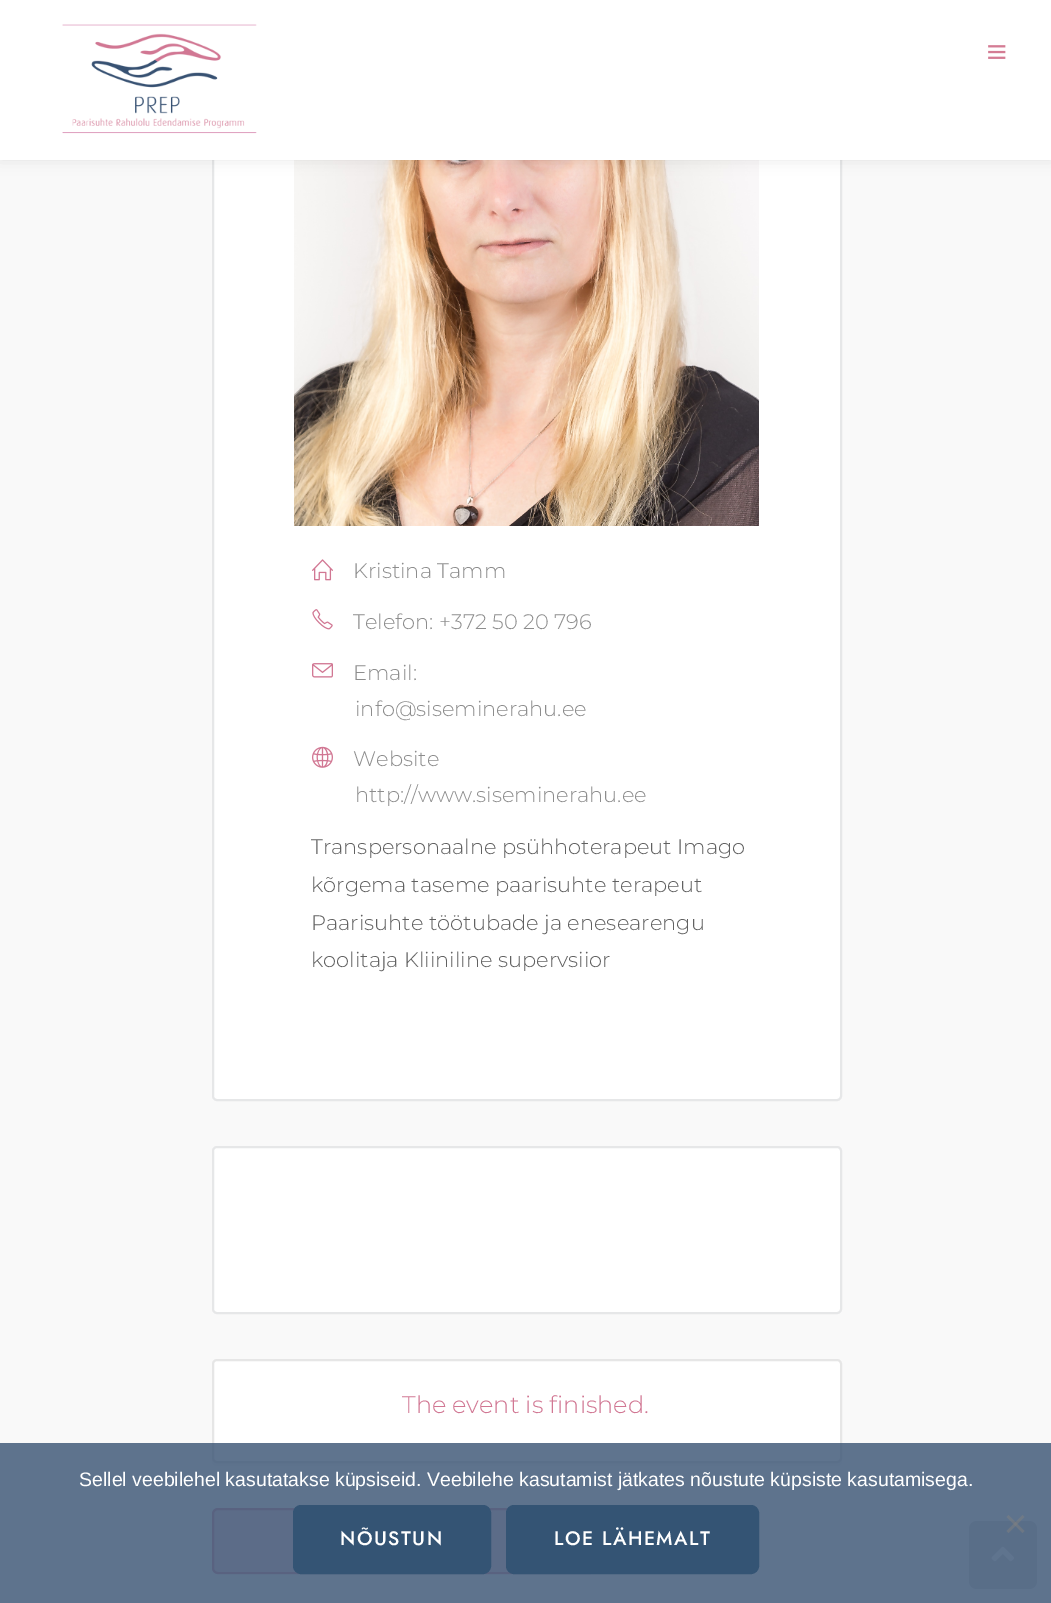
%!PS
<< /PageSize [1051 1603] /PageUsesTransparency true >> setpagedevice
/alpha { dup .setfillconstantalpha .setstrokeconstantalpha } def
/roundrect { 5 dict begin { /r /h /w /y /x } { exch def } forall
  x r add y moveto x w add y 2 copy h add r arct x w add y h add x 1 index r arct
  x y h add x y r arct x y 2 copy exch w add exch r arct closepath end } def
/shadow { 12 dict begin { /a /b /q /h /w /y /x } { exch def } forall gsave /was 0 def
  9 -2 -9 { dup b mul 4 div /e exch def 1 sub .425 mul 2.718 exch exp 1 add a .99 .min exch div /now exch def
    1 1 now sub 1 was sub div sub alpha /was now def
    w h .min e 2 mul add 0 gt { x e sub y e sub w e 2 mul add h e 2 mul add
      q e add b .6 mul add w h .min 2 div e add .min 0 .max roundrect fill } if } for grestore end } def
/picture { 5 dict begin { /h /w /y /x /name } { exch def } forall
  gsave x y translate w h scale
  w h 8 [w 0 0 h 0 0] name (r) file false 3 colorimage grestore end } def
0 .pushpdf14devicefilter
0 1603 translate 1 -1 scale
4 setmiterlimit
0.976 setgray
0 0 1051 1603 rectfill
1 setgray
213 -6 628 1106 4 roundrect gsave fill grestore
0.902 0.906 0.91 setrgbcolor
2 setlinewidth
stroke
(img3.rgb) 294 160 465 366 picture
0.004 setgray
0 0 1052 159 0 7.5 0.1 shadow
1 setgray
0 0 1051 160 rectfill
(img1.rgb) 62 24 195 110 picture
(img2.rgb) 988 45 18 14 picture
(img4.rgb) 312 559 21 22 picture
/Montserrat-Light [21 0 0 -21 0 0] selectfont
0.553 setgray
353 578 moveto (Kristina Tamm) show
(img5.rgb) 312 609 21 21 picture
353 629 moveto (Telefon: +372 50 20 796) show
(img6.rgb) 312 663 21 15 picture
353 680 moveto (Email:) show
355 716 moveto (info@siseminerahu.ee) show
(img7.rgb) 312 746 21 22 picture
353 766 moveto (Website) show
355 802 moveto (http://www.siseminerahu.ee) show
0.38 setgray
311 854 moveto (Transpersonaalne psühhoterapeut Imago) show
311 892 moveto (kõrgema taseme paarisuhte terapeut) show
311 930 moveto (Paarisuhte töötubade ja enesearengu) show
311 967 moveto (koolitaja Kliiniline supervsiior) show
1 setgray
213 1147 628 166 4 roundrect gsave fill grestore
0.902 0.906 0.91 setrgbcolor
stroke
0.961 setgray
newpath 212 1460 moveto 212 1461 lineto 212 1464 214 1466 217 1466 curveto 837 1466 lineto 840 1466 842 1464 842 1461 curveto 842 1367 lineto 842 1365 lineto 842 1458 lineto 842 1460 839 1462 837 1462 curveto 216 1462 lineto 214 1462 213 1462 212 1460 curveto closepath fill
1 setgray
213 1360 628 102 4 roundrect gsave fill grestore
0.902 setgray
stroke
/Montserrat-Light [24 0 0 -24 0 0] selectfont
0.82 0.467 0.576 setrgbcolor
402 1413 moveto (The event is finished.) show
0.988 setgray
newpath 212 1570 moveto 213 1573 215 1575 218 1575 curveto 590 1575 lineto 593 1575 596 1572 596 1569 curveto 596 1515 lineto 595 1512 lineto 596 1568 lineto 596 1571 593 1574 590 1574 curveto 218 1574 lineto 215 1574 213 1572 212 1570 curveto closepath fill
0.25 alpha
0.82 0.467 0.576 setrgbcolor
212 1508 384 66 6 roundrect fill
0.5 alpha
213 1509 382 64 5 roundrect stroke
1 alpha
0.878 setgray
969 1521 68 68 8 roundrect fill
(img8.rgb) 991 1546 23 16 picture
0.8 alpha
0.216 0.318 0.447 setrgbcolor
0 1443 1051 160 rectfill
/LiberationSans-Regular [19.5 0 0 -19.5 0 0] selectfont
1 alpha
1 setgray
79 1486 moveto (Sellel veebilehel kasutatakse küpsiseid. Veebilehe kasutamist jätkates nõustute küpsiste kasutamisega.) show
0.5 alpha
0.502 setgray
newpath 1022.5 1515 moveto 1024.5 1517 lineto 1008.5 1533 lineto 1006.5 1531 lineto closepath fill
newpath 1006.5 1517 moveto 1008.5 1515 lineto 1024.5 1531 lineto 1022.5 1533 lineto closepath fill
1 alpha
0.204 0.329 0.455 setrgbcolor
294.5 1506.5 195 66 6.5 roundrect gsave fill grestore
3 setlinewidth
stroke
/Jost-Medium [19.5 0 0 -19.5 0 0] selectfont
1 setgray
340 1545 moveto 1.5 0 (NÕUSTUN) ashow
0.204 0.329 0.455 setrgbcolor
507.5 1506.5 250 66 6.5 roundrect gsave fill grestore
stroke
1 setgray
554 1545 moveto 1.5 0 (LOE LÄHEMALT) ashow
.poppdf14devicefilter showpage
